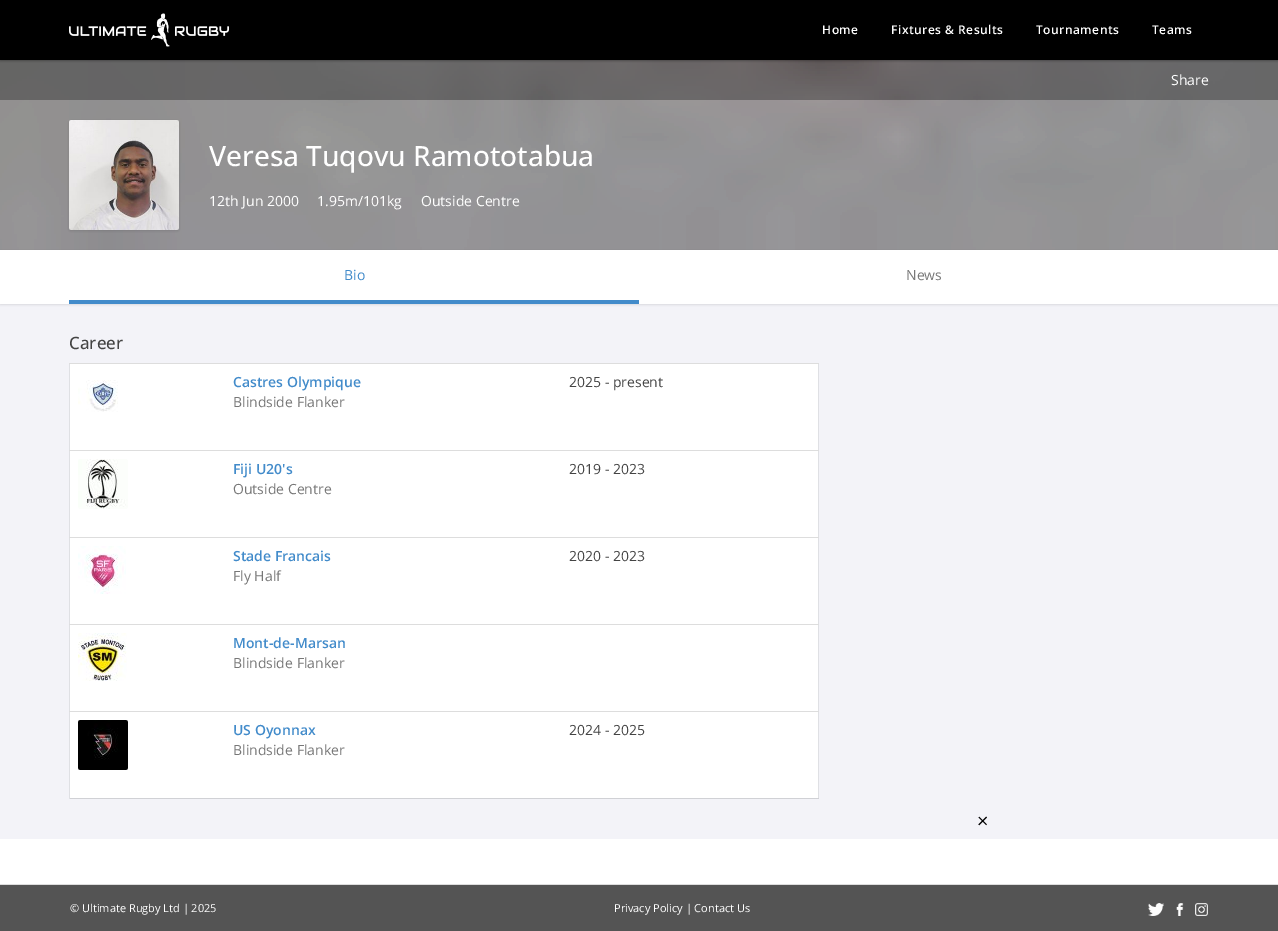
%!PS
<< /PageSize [1278 931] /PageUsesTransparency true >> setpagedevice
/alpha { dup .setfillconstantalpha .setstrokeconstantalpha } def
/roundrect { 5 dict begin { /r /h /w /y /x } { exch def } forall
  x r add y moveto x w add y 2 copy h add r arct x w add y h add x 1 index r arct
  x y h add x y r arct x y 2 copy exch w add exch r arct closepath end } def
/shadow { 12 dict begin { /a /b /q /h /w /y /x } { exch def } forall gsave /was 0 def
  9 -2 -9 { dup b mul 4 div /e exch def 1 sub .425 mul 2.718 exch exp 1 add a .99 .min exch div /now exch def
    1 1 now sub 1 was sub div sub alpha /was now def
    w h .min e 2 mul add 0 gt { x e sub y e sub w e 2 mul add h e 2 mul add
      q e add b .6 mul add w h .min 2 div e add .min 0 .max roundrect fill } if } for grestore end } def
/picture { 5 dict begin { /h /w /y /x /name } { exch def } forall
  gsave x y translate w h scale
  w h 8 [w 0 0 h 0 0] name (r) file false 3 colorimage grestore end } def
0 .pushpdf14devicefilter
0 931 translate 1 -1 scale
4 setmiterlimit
1 setgray
0 0 1278 931 rectfill
0.133 setgray
0 60 1278 190 rectfill
(img2.rgb) 0 60 1278 190 picture
0.3 alpha
0 setgray
0 60 1278 40 rectfill
1 alpha
0 1 1278 60 0 1 0.3 shadow
0 0 1278 60 rectfill
(img1.rgb) 69 13 160 34 picture
/OpenSans-SemiBold [12 0 0 -12 0 0] selectfont
1 setgray
822 34 moveto 0.5 0 (Home) ashow
891 34 moveto 0.5 0 (Fixtures & Results) ashow
1036 34 moveto 0.5 0 (Tournaments) ashow
1152 34 moveto 0.5 0 (Teams) ashow
0.953 0.953 0.973 setrgbcolor
0 304 1278 535 rectfill
/OpenSans-Regular [14 0 0 -14 0 0] selectfont
1 setgray
1171 85 moveto (Share) show
0 setgray
69 121 110 110 2 1 0.1 shadow
(img3.rgb) 69 120 110 110 picture
/OpenSans-Medium [28 0 0 -28 0 0] selectfont
1 setgray
209 166 moveto (Veresa Tuqovu Ramototabua) show
/OpenSans-Regular [14 0 0 -14 0 0] selectfont
209 206 moveto (12th Jun 2000) show
317 206 moveto (1.95m/101kg) show
421 206 moveto (Outside Centre) show
0 setgray
0 251 1278 54 0 1 0.1 shadow
1 setgray
0 250 1278 54 rectfill
0.259 0.545 0.792 setrgbcolor
69 300 570 4 rectfill
344 280 moveto (Bio) show
0.467 setgray
906 280 moveto (News) show
/OpenSans-Medium [17 0 0 -17 0 0] selectfont
0.267 setgray
69 349 moveto (Career) show
1 setgray
70 364 748 434 rectfill
0.875 0.878 0.894 setrgbcolor
818 363 1 436 rectfill
0.816 0.82 0.835 setrgbcolor
69 798 750 1 rectfill
0.875 0.878 0.894 setrgbcolor
69 363 1 436 rectfill
(img4.rgb) 78 380 40 32 picture
/OpenSans-SemiBold [14 0 0 -14 0 0] selectfont
0.259 0.545 0.792 setrgbcolor
233 387 moveto (Castres Olympique) show
/OpenSans-Regular [14 0 0 -14 0 0] selectfont
0.467 setgray
233 407 moveto (Blindside Flanker) show
0.867 setgray
69 363 750 1 rectfill
0.267 setgray
569 387 moveto (2025 - present) show
(img5.rgb) 78 459 50 50 picture
/OpenSans-SemiBold [14 0 0 -14 0 0] selectfont
0.259 0.545 0.792 setrgbcolor
233 474 moveto (Fiji U20's) show
/OpenSans-Regular [14 0 0 -14 0 0] selectfont
0.467 setgray
233 494 moveto (Outside Centre) show
0.867 setgray
69 450 750 1 rectfill
0.267 setgray
569 474 moveto (2019 - 2023) show
(img6.rgb) 78 546 48 48 picture
/OpenSans-SemiBold [14 0 0 -14 0 0] selectfont
0.259 0.545 0.792 setrgbcolor
233 561 moveto (Stade Francais) show
/OpenSans-Regular [14 0 0 -14 0 0] selectfont
0.467 setgray
233 581 moveto (Fly Half) show
0.867 setgray
69 537 750 1 rectfill
0.267 setgray
569 561 moveto (2020 - 2023) show
0.867 setgray
69 624 750 1 rectfill
(img7.rgb) 78 633 49 48 picture
/OpenSans-SemiBold [14 0 0 -14 0 0] selectfont
0.259 0.545 0.792 setrgbcolor
233 648 moveto (Mont-de-Marsan) show
/OpenSans-Regular [14 0 0 -14 0 0] selectfont
0.467 setgray
233 668 moveto (Blindside Flanker) show
(img8.rgb) 78 720 50 50 picture
/OpenSans-SemiBold [14 0 0 -14 0 0] selectfont
0.259 0.545 0.792 setrgbcolor
233 735 moveto (US Oyonnax) show
/OpenSans-Regular [14 0 0 -14 0 0] selectfont
0.467 setgray
233 755 moveto (Blindside Flanker) show
0.867 setgray
69 711 750 1 rectfill
0.267 setgray
569 735 moveto (2024 - 2025) show
/OpenSans-Regular [20 0 0 -20 0 0] selectfont
0 setgray
977 828 moveto (×) show
0.329 setgray
0 885 1278 46 rectfill
0.867 setgray
0 884 1278 1 rectfill
/OpenSans-Regular [11 0 0 -11 0 0] selectfont
1 setgray
70 912 moveto (© Ultimate Rugby Ltd | 2025) show
614 912 moveto (Privacy Policy | Contact Us) show
(img9.rgb) 1148 903 16 13 picture
(img10.rgb) 1176 903 8 13 picture
(img11.rgb) 1195 903 13 13 picture
.poppdf14devicefilter showpage
